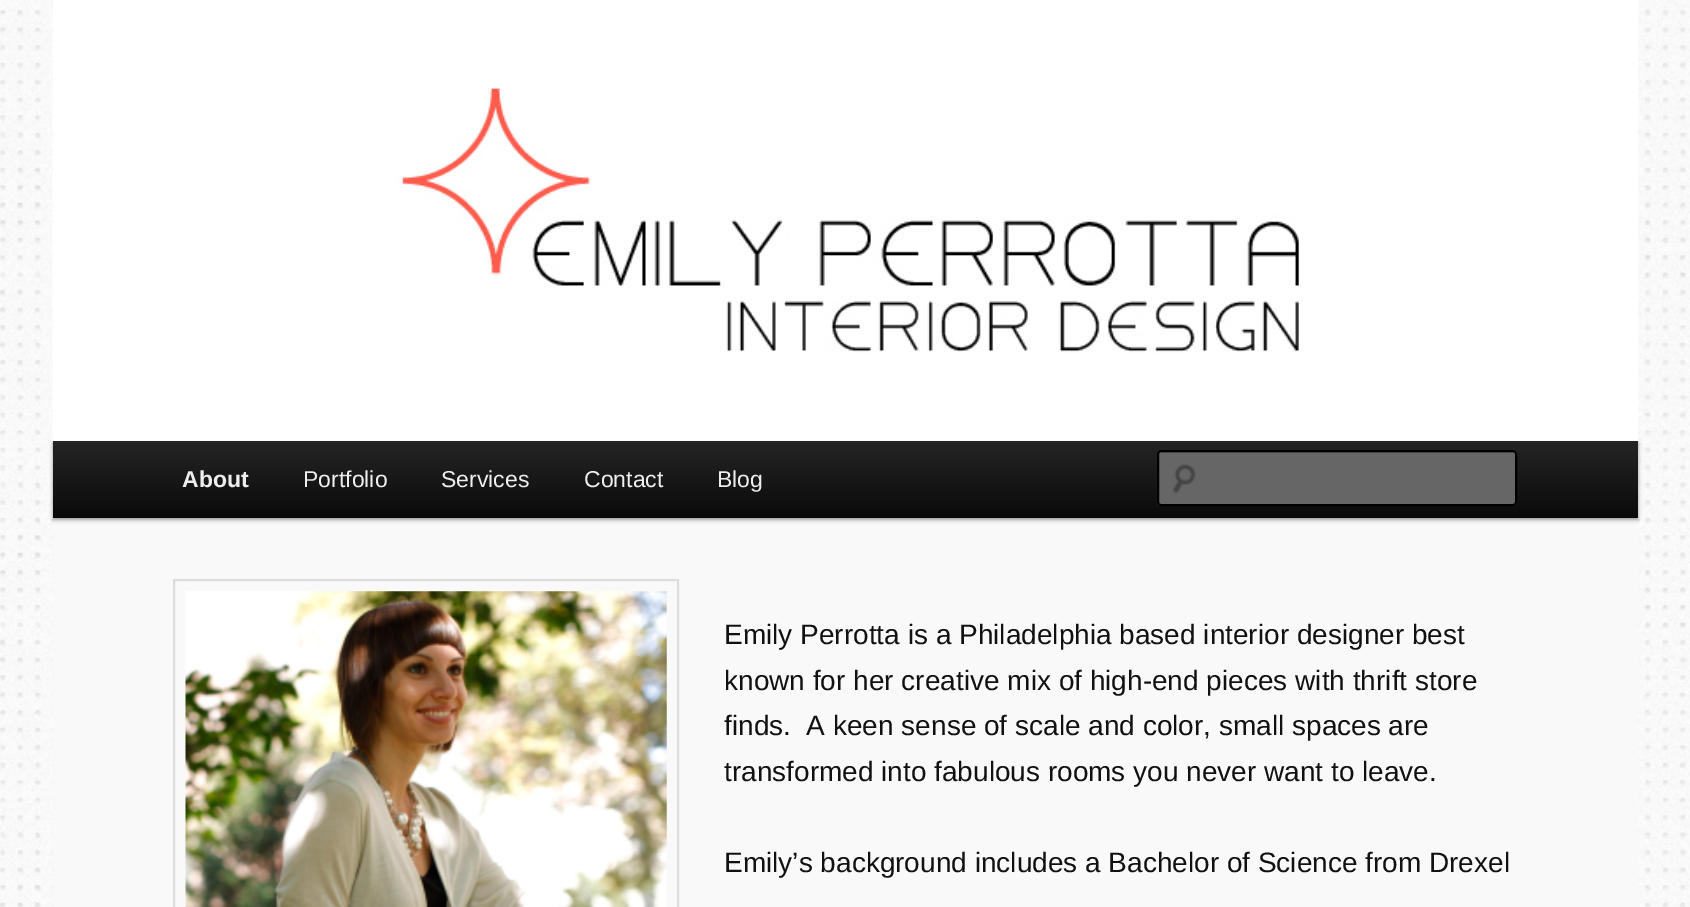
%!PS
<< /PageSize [1690 907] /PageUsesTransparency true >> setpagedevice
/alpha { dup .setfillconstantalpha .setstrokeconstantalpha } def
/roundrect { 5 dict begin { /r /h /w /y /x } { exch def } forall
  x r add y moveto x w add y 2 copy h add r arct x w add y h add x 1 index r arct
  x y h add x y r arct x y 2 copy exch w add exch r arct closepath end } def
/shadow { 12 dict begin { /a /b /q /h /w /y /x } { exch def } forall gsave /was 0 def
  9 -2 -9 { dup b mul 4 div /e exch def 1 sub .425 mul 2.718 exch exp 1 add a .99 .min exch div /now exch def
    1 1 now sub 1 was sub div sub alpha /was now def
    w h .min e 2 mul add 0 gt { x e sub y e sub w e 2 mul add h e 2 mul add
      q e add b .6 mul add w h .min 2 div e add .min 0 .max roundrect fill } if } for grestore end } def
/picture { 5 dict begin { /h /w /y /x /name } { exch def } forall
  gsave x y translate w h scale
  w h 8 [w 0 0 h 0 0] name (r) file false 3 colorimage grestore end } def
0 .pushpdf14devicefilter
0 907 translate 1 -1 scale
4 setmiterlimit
1 setgray
0 0 1690 907 rectfill
(img1.rgb) 0 0 1690 907 picture
53 0 1585 522 rectfill
0.976 setgray
53 522 1585 385 rectfill
0 setgray
53 443 1585 77 0 2 0.4 shadow
(img2.rgb) 52 7 1586 434 picture
gsave newpath 53 441 moveto 1638 441 lineto 1638 518 lineto 53 518 lineto closepath clip newpath
<< /ShadingType 2 /ColorSpace /DeviceRGB /Coords [845 441 845 518] /Extend [true true] /Function << /FunctionType 2 /Domain [0 1] /C0 [0.145 0.145 0.145] /C1 [0.039 0.039 0.039] /N 1 >> >> shfill grestore
/LiberationSans-Bold [23 0 0 -23 0 0] selectfont
0.933 setgray
182 487 moveto (About) show
/LiberationSans-Regular [23 0 0 -23 0 0] selectfont
303 487 moveto (Portfolio) show
441 487 moveto (Services) show
584 487 moveto (Contact) show
717 487 moveto (Blog) show
0.4 setgray
1157 450 360 56 4 roundrect fill
(img3.rgb) 1172 464 24 30 picture
0.361 setgray
newpath 1160 453 moveto 1514 453 lineto 1515 453 1516 454 1516 455 curveto 1516 454 1516 452 1514 452 curveto 1161 452 lineto 1159 453 lineto closepath fill
0 setgray
2 setlinewidth
1158 451 358 54 3 roundrect stroke
0.867 setgray
174 580 504 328 rectstroke
(img4.rgb) 185 591 482 316 picture
/LiberationSans-Regular [28 0 0 -28 0 0] selectfont
0.067 setgray
724 644 moveto (Emily Perrotta is a Philadelphia based interior designer best) show
724 690 moveto (known for her creative mix of high-end pieces with thrift store) show
724 735 moveto (finds.  A keen sense of scale and color, small spaces are) show
724 781 moveto (transformed into fabulous rooms you never want to leave.) show
724 872 moveto (Emily’s background includes a Bachelor of Science from Drexel) show
.poppdf14devicefilter showpage
